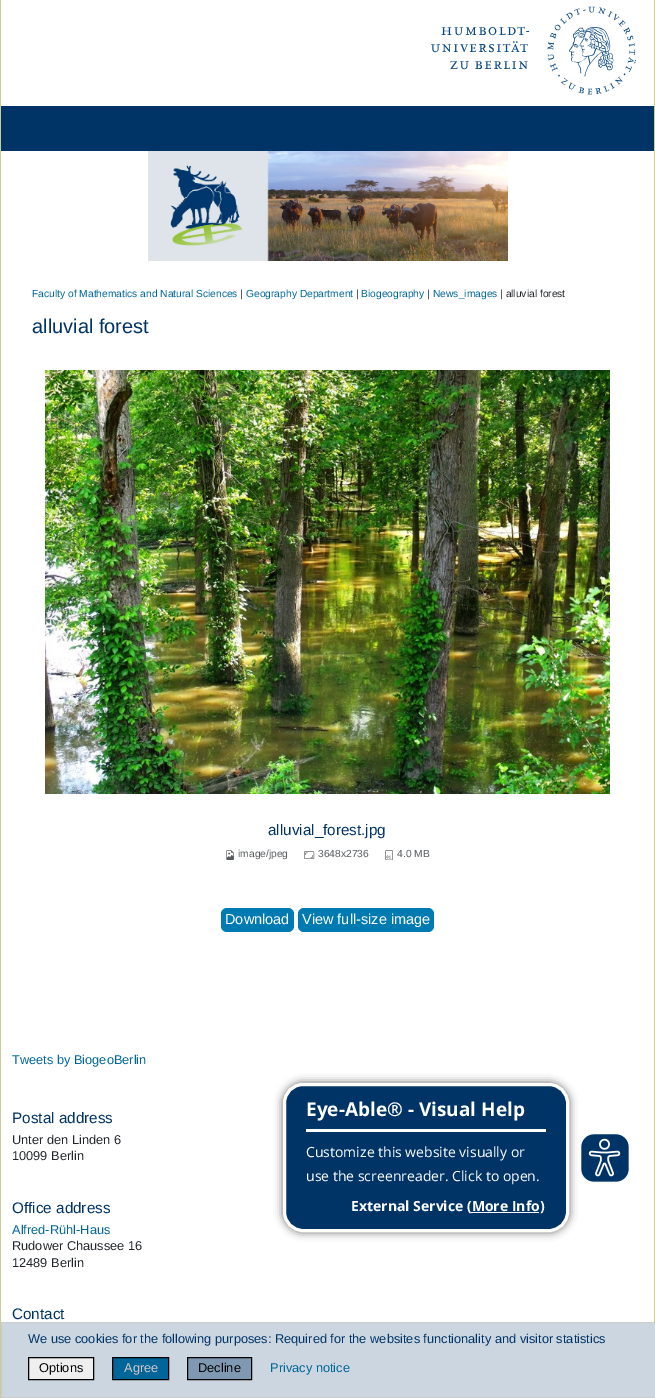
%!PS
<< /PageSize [655 1398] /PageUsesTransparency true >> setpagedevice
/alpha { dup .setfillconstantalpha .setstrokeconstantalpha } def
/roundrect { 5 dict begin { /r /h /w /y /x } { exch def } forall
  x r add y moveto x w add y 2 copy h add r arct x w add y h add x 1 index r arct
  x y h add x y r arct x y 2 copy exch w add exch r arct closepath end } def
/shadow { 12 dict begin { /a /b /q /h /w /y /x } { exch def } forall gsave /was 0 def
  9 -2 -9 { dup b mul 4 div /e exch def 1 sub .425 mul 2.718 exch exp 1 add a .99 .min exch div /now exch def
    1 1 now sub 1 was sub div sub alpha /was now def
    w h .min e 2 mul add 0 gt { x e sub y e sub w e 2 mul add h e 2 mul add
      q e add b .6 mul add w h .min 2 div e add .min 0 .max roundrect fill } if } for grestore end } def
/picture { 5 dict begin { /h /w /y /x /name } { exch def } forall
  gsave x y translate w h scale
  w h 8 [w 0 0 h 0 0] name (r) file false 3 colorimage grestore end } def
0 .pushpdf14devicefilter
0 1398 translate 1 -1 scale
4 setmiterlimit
1 setgray
0 0 655 1398 rectfill
(img1.rgb) 431 6 205 89 picture
0 0.2 0.4 setrgbcolor
1 106 653 45 rectfill
(img2.rgb) 148 151 360 110 picture
0.8 0.8 0.6 setrgbcolor
654 0 1 1322 rectfill
0 0 1 1398 rectfill
/LiberationSans-Regular [10.25 0 0 -10.25 0 0] selectfont
0 0.4 0.6 setrgbcolor
32 297 moveto (Faculty of Mathematics and Natural Sciences) show
0.129 0.145 0.161 setrgbcolor
240 297 moveto (|) show
0 0.4 0.6 setrgbcolor
246 297 moveto (Geography Department) show
0.129 0.145 0.161 setrgbcolor
356 297 moveto (|) show
0 0.4 0.6 setrgbcolor
361 297 moveto (Biogeography) show
0.129 0.145 0.161 setrgbcolor
427 297 moveto (|) show
0 0.4 0.6 setrgbcolor
433 297 moveto (News_images) show
0.129 0.145 0.161 setrgbcolor
500 297 moveto (| alluvial forest) show
/LiberationSans-Regular [20 0 0 -20 0 0] selectfont
0 0.2 0.4 setrgbcolor
32 333 moveto (alluvial forest) show
(img3.rgb) 45 370 565 424 picture
/LiberationSans-Regular [15.25 0 0 -15.25 0 0] selectfont
268 835 moveto (alluvial_forest.jpg) show
(img4.rgb) 226 850 8 10 picture
/LiberationSans-Regular [10.25 0 0 -10.25 0 0] selectfont
0.349 0.361 0.373 setrgbcolor
238 857 moveto (image/jpeg) show
(img5.rgb) 304 851 11 8 picture
318 857 moveto (3648x2736) show
(img6.rgb) 385 850 8 10 picture
397 857 moveto (4.0 MB) show
0 0.482 0.694 setrgbcolor
221 908 73 24 6 roundrect fill
/LiberationSans-Regular [14.5 0 0 -14.5 0 0] selectfont
1 setgray
225 924 moveto (Download) show
0 0.482 0.694 setrgbcolor
298 908 136 24 6 roundrect fill
1 setgray
302 924 moveto (View full-size image) show
/LiberationSans-Regular [12.8 0 0 -12.8 0 0] selectfont
0 0.4 0.6 setrgbcolor
12 1064 moveto (Tweets by BiogeoBerlin) show
/LiberationSans-Regular [15.25 0 0 -15.25 0 0] selectfont
0 0.2 0.4 setrgbcolor
12 1123 moveto (Postal address) show
/LiberationSans-Regular [12.8 0 0 -12.8 0 0] selectfont
0.129 0.145 0.161 setrgbcolor
12 1144 moveto (Unter den Linden 6) show
12 1160 moveto (10099 Berlin) show
/LiberationSans-Regular [15.25 0 0 -15.25 0 0] selectfont
0 0.2 0.4 setrgbcolor
12 1213 moveto (Office address) show
/LiberationSans-Regular [12.8 0 0 -12.8 0 0] selectfont
0 0.4 0.6 setrgbcolor
12 1234 moveto (Alfred-Rühl-Haus) show
0.129 0.145 0.161 setrgbcolor
12 1250 moveto (Rudower Chaussee 16) show
12 1267 moveto (12489 Berlin) show
/LiberationSans-Regular [15.25 0 0 -15.25 0 0] selectfont
0 0.2 0.4 setrgbcolor
12 1319 moveto (Contact) show
0 setgray
282 1082 288 151 21 4 0.5 shadow
0 0.2 0.4 setrgbcolor
284.5 1084.5 283 146 18.5 roundrect gsave fill grestore
1 setgray
3 setlinewidth
stroke
306 1129 240 3 rectfill
/OpenSans-Bold [19 0 0 -19 0 0] selectfont
306 1116 moveto (Eye-Able® - Visual Help) show
/OpenSans-Regular [14 0 0 -14 0 0] selectfont
306 1157 moveto (Customize this website visually or) show
306 1181 moveto (use the screenreader. Click to open.) show
/OpenSans-Bold [14 0 0 -14 0 0] selectfont
351 1211 moveto (External Service \(More Info\)) show
471 1212 68 1 rectfill
(img7.rgb) 580 1133 50 50 picture
0.8 0.839 0.878 setrgbcolor
newpath 1.5 1322.5 moveto 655.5 1322.5 lineto 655.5 1397.5 lineto 1.5 1397.5 lineto closepath gsave fill grestore
0.8 setgray
1 setlinewidth
stroke
/LiberationSans-Regular [12.8 0 0 -12.8 0 0] selectfont
0 0.2 0.4 setrgbcolor
28 1343 moveto (We use cookies for the following purposes: Required for the websites functionality and visitor statistics) show
0.937 setgray
newpath 28.5 1357.5 moveto 93.5 1357.5 lineto 93.5 1379.5 lineto 28.5 1379.5 lineto closepath gsave fill grestore
0 setgray
stroke
39 1372 moveto (Options) show
0 0.4 0.6 setrgbcolor
newpath 112.5 1357.5 moveto 168.5 1357.5 lineto 168.5 1379.5 lineto 112.5 1379.5 lineto closepath gsave fill grestore
0 setgray
stroke
0.835 0.78 0.78 setrgbcolor
124 1372 moveto (Agree) show
0.502 0.6 0.698 setrgbcolor
newpath 187.5 1357.5 moveto 251.5 1357.5 lineto 251.5 1379.5 lineto 187.5 1379.5 lineto closepath gsave fill grestore
0 setgray
stroke
198 1372 moveto (Decline) show
0 0.4 0.6 setrgbcolor
270 1372 moveto (Privacy notice) show
.poppdf14devicefilter showpage
